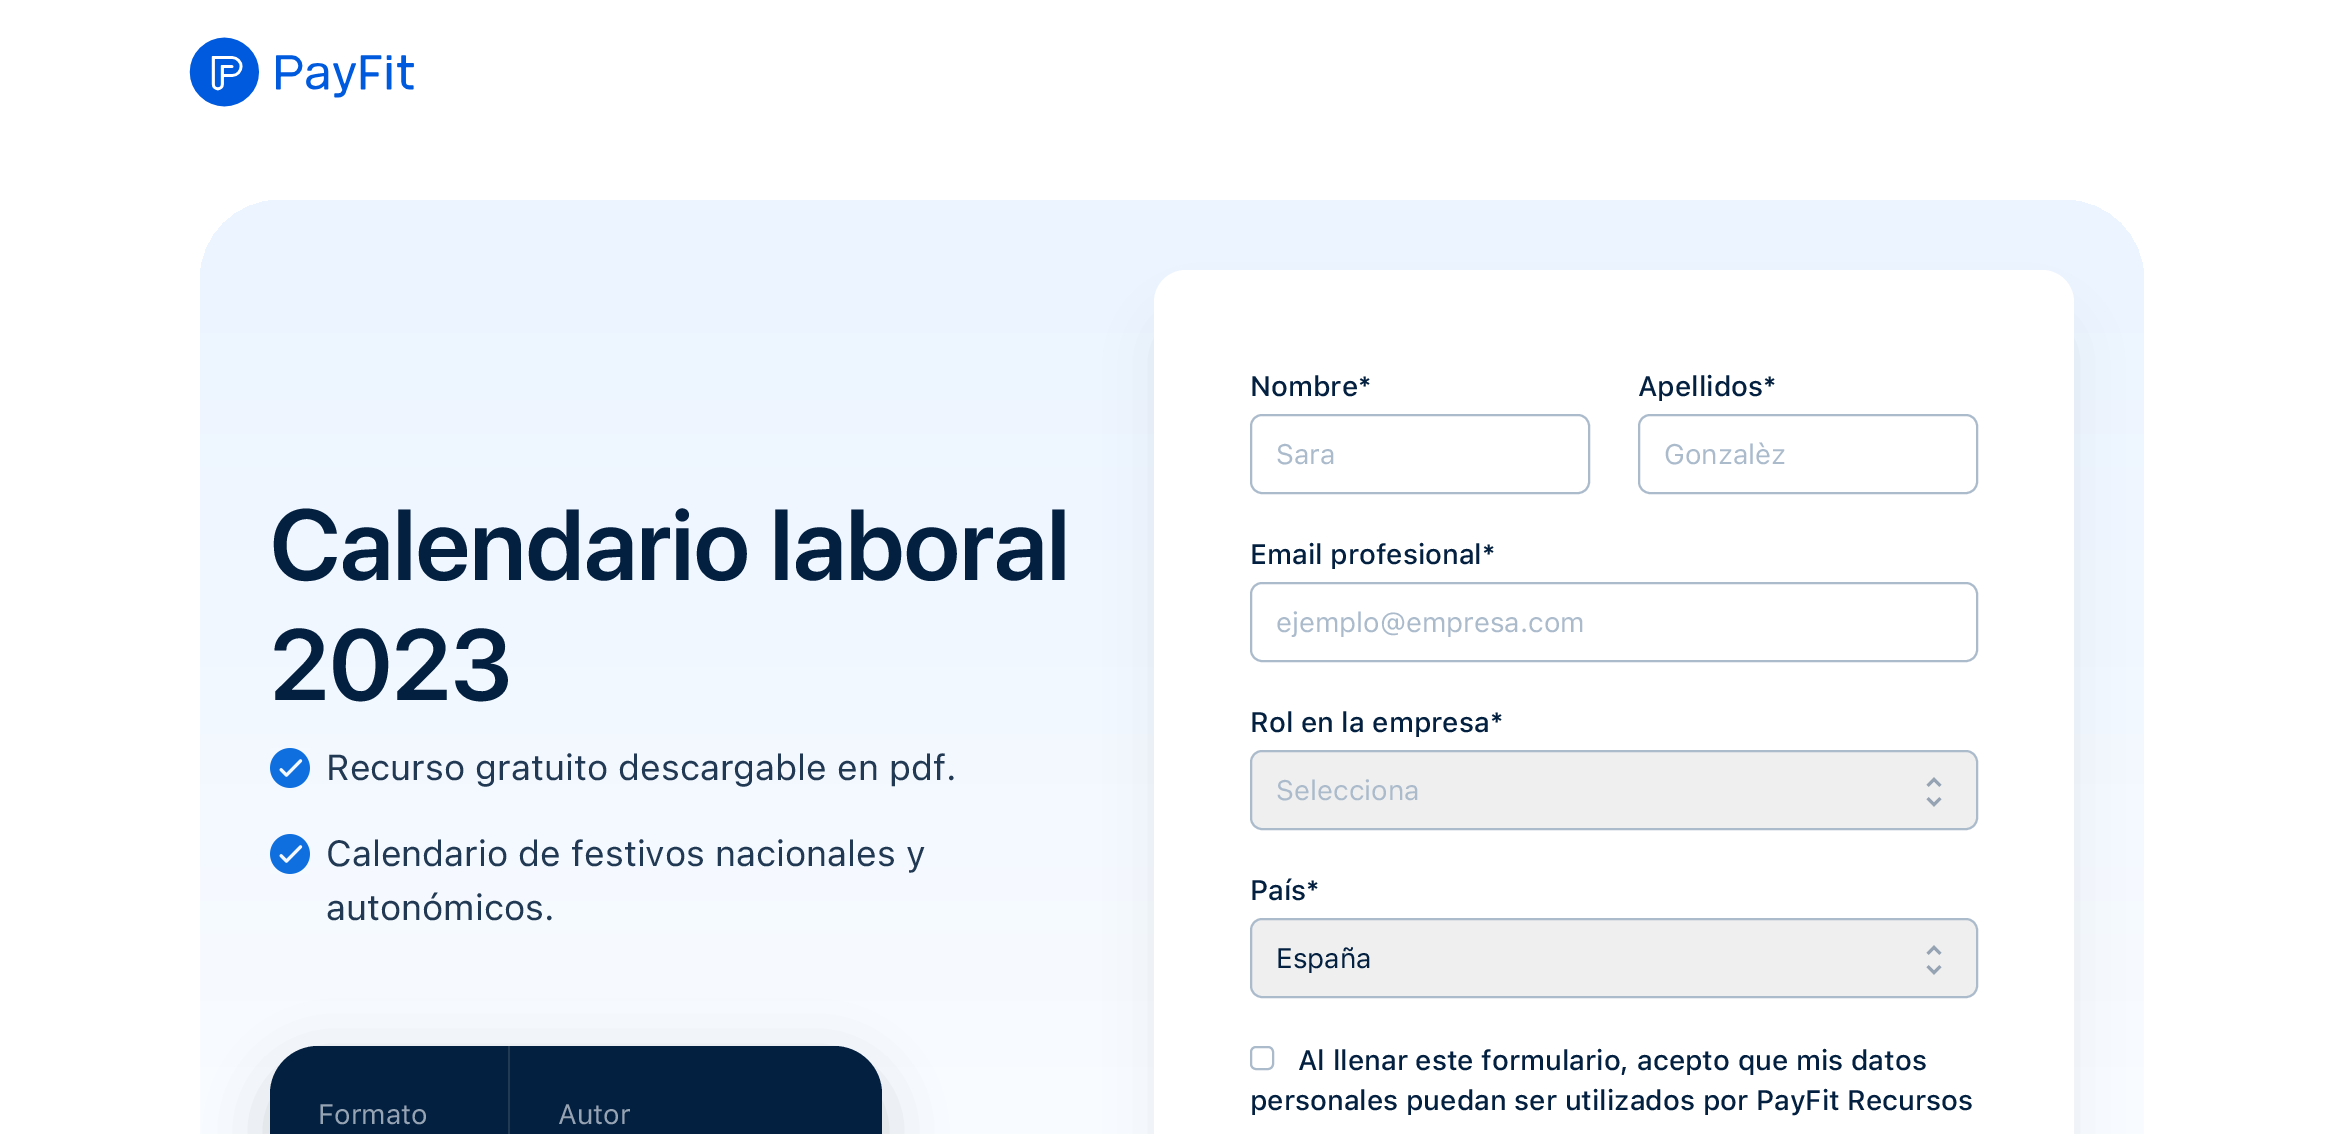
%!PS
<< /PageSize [2343 1134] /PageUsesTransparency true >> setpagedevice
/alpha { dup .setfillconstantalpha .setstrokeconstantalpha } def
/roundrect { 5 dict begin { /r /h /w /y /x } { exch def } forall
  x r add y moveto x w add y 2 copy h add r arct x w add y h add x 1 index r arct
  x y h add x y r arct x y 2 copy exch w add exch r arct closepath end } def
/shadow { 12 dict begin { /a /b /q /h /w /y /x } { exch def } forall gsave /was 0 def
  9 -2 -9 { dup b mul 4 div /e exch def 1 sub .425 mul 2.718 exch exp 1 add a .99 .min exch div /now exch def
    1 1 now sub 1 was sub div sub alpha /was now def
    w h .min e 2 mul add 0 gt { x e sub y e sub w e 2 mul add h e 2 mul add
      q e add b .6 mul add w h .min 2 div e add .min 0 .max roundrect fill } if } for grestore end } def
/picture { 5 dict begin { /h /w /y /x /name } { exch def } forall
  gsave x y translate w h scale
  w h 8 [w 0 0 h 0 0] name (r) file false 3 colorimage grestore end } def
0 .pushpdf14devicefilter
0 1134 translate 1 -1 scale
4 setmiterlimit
1 setgray
0 0 2343 1134 rectfill
(img1.rgb) 189 37 225 70 picture
gsave 200 200 1944 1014 80 roundrect clip newpath
<< /ShadingType 2 /ColorSpace /DeviceRGB /Coords [1172 200 1172 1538] /Extend [true true] /Function << /FunctionType 2 /Domain [0 1] /C0 [0.922 0.957 1] /C1 [1 1 1] /N 1 >> >> shfill grestore
/SFProDisplay-SemiBold [100 0 0 -100 0 0] selectfont
0.016 0.125 0.251 setrgbcolor
270 580 moveto (Calendario laboral) show
270 700 moveto (2023) show
(img2.rgb) 270 748 40 40 picture
/SFProText-Regular [36 0 0 -36 0 0] selectfont
0.133 0.224 0.329 setrgbcolor
326 780 moveto (Recurso gratuito descargable en pdf.) show
(img3.rgb) 270 834 40 40 picture
326 866 moveto (Calendario de festivos nacionales y) show
326 920 moveto (autonómicos.) show
0 setgray
270 1066 612 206 48 30 0.15 shadow
0.016 0.125 0.251 setrgbcolor
270 1046 612 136 48 roundrect fill
/SFProText-Regular [28 0 0 -28 0 0] selectfont
0.588 0.639 0.702 setrgbcolor
318 1124 moveto (Formato) show
0.133 0.224 0.329 setrgbcolor
508 1046 2 88 rectfill
0.588 0.639 0.702 setrgbcolor
558 1124 moveto (Autor) show
0 setgray
1170 330 888 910 16 30 0.1 shadow
1 setgray
1154 270 920 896 32 roundrect fill
/SFProText-Medium [28 0 0 -28 0 0] selectfont
0.016 0.125 0.251 setrgbcolor
1250 396 moveto (Nombre*) show
0.671 0.733 0.8 setrgbcolor
2 setlinewidth
1251 415 338 78 11 roundrect stroke
/SFProText-Regular [28 0 0 -28 0 0] selectfont
1276 464 moveto (Sara) show
/SFProText-Medium [28 0 0 -28 0 0] selectfont
0.016 0.125 0.251 setrgbcolor
1638 396 moveto (Apellidos*) show
0.671 0.733 0.8 setrgbcolor
1639 415 338 78 11 roundrect stroke
/SFProText-Regular [28 0 0 -28 0 0] selectfont
1664 464 moveto (Gonzalèz) show
/SFProText-Medium [28 0 0 -28 0 0] selectfont
0.016 0.125 0.251 setrgbcolor
1250 564 moveto (Email profesional*) show
0.671 0.733 0.8 setrgbcolor
1251 583 726 78 11 roundrect stroke
/SFProText-Regular [28 0 0 -28 0 0] selectfont
1276 632 moveto (ejemplo@empresa.com) show
/SFProText-Medium [28 0 0 -28 0 0] selectfont
0.016 0.125 0.251 setrgbcolor
1250 732 moveto (Rol en la empresa*) show
0.937 setgray
1251 751 726 78 11 roundrect gsave fill grestore
0.671 0.733 0.8 setrgbcolor
stroke
/SFProText-Regular [28 0 0 -28 0 0] selectfont
1276 800 moveto (Selecciona) show
(img4.rgb) 1926 777 16 30 picture
/SFProText-Medium [28 0 0 -28 0 0] selectfont
0.016 0.125 0.251 setrgbcolor
1250 900 moveto (País*) show
0.937 setgray
1251 919 726 78 11 roundrect gsave fill grestore
0.671 0.733 0.8 setrgbcolor
stroke
/SFProText-Regular [28 0 0 -28 0 0] selectfont
0.016 0.125 0.251 setrgbcolor
1276 968 moveto (España) show
(img4.rgb) 1926 945 16 30 picture
0.671 0.733 0.8 setrgbcolor
1251 1047 22 22 5 roundrect stroke
/SFProText-Medium [28 0 0 -28 0 0] selectfont
0.016 0.125 0.251 setrgbcolor
1298 1070 moveto (Al llenar este formulario, acepto que mis datos) show
1250 1110 moveto (personales puedan ser utilizados por PayFit Recursos) show
.poppdf14devicefilter showpage
